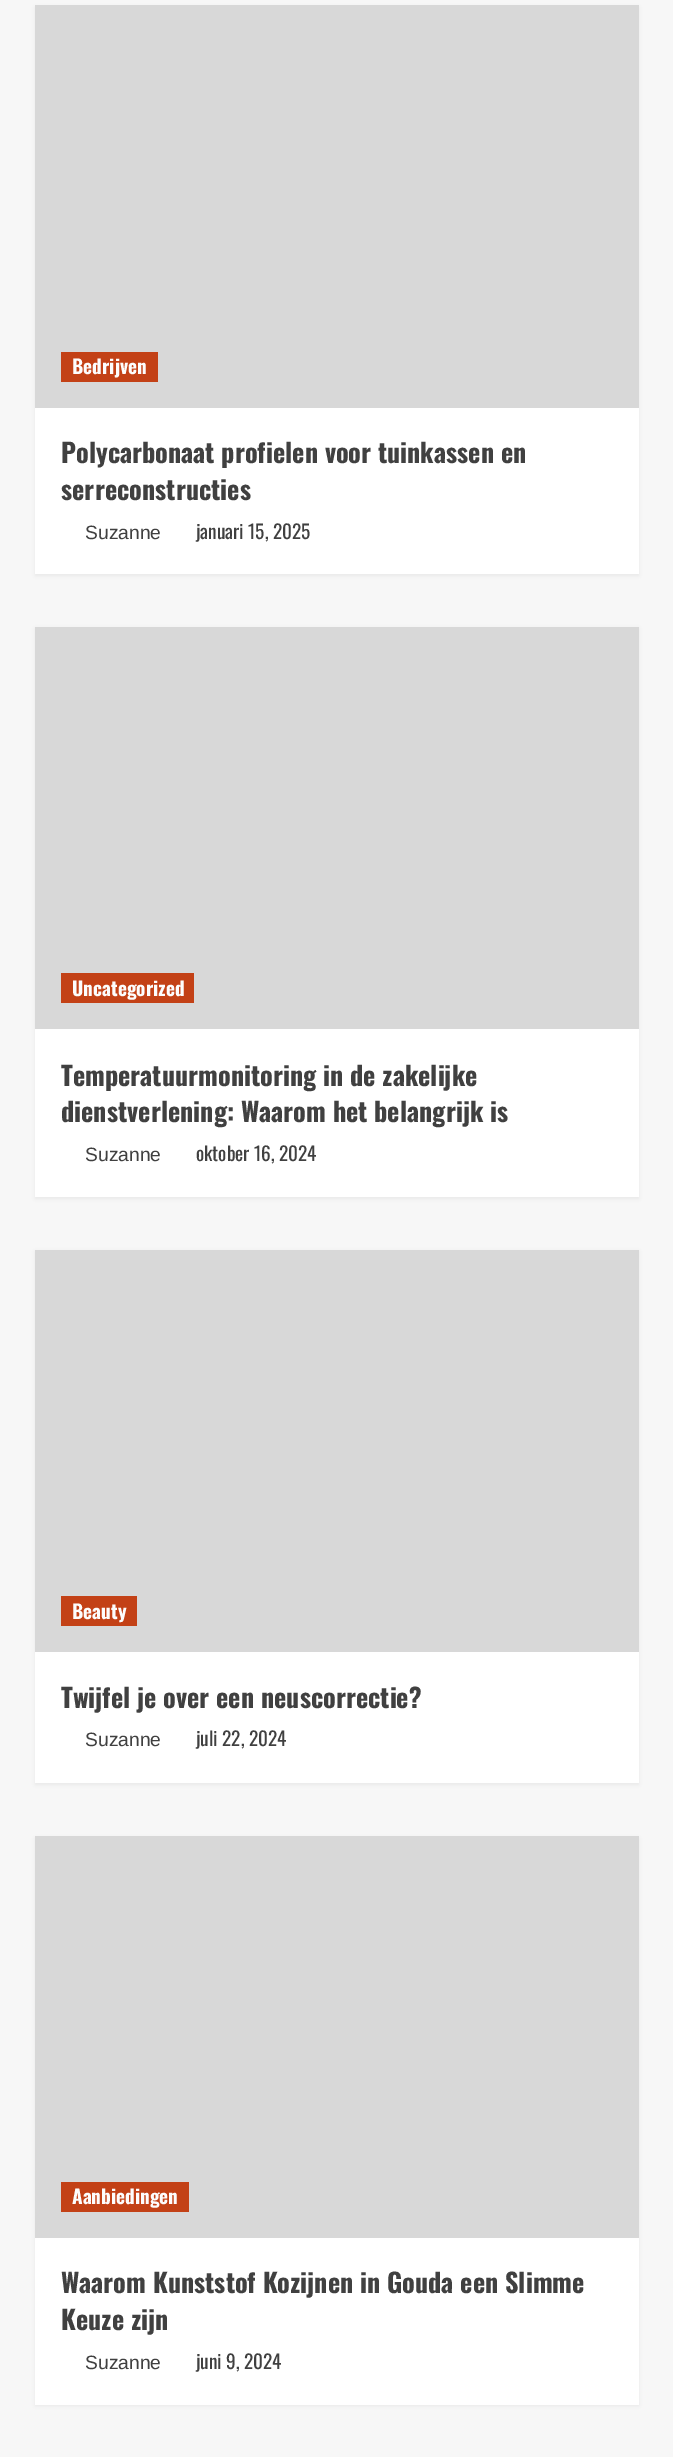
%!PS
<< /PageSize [673 2457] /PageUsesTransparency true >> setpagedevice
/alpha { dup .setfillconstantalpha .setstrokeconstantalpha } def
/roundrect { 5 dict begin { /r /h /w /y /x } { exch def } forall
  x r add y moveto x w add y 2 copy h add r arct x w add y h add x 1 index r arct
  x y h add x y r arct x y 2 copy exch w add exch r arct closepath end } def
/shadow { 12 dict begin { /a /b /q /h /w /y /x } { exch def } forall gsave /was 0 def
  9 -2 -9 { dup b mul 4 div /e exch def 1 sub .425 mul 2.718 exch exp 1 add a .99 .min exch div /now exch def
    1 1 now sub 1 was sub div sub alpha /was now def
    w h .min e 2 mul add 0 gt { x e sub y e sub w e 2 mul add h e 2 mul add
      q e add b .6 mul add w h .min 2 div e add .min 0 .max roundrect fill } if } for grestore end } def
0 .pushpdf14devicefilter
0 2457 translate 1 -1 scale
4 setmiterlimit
0.969 setgray
0 0 673 2457 rectfill
0 setgray
35 7 604 569 0 2 0.05 shadow
1 setgray
35 408 604 166 rectfill
0.847 setgray
35 5 604 403 rectfill
0.765 0.255 0.086 setrgbcolor
61 352 97 30 rectfill
/Oswald-Bold [19.25 0 0 -19.25 0 0] selectfont
0.992 setgray
72 374 moveto (Bedrijven) show
/Oswald-Bold [26.25 0 0 -26.25 0 0] selectfont
0.251 setgray
61 463 moveto (Polycarbonaat profielen voor tuinkassen en) show
61 500 moveto (serreconstructies) show
/LiberationSans-Regular [19.25 0 0 -19.25 0 0] selectfont
85 539 moveto (Suzanne) show
/Oswald-Regular [19.25 0 0 -19.25 0 0] selectfont
196 539 moveto (januari 15, 2025) show
0 setgray
35 628 604 571 0 2 0.05 shadow
1 setgray
35 1029 604 168 rectfill
0.847 setgray
35 627 604 402 rectfill
0.765 0.255 0.086 setrgbcolor
61 973 133 30 rectfill
/Oswald-Bold [19.25 0 0 -19.25 0 0] selectfont
0.992 setgray
72 996 moveto (Uncategorized) show
/Oswald-Bold [26.25 0 0 -26.25 0 0] selectfont
0.251 setgray
61 1086 moveto (Temperatuurmonitoring in de zakelijke) show
61 1122 moveto (dienstverlening: Waarom het belangrijk is) show
/LiberationSans-Regular [19.25 0 0 -19.25 0 0] selectfont
85 1161 moveto (Suzanne) show
/Oswald-Regular [19.25 0 0 -19.25 0 0] selectfont
196 1161 moveto (oktober 16, 2024) show
0 setgray
35 1251 604 534 0 2 0.05 shadow
1 setgray
35 1652 604 131 rectfill
0.847 setgray
35 1250 604 402 rectfill
0.765 0.255 0.086 setrgbcolor
61 1596 76 30 rectfill
/Oswald-Bold [19.25 0 0 -19.25 0 0] selectfont
0.992 setgray
72 1619 moveto (Beauty) show
/Oswald-Bold [26.25 0 0 -26.25 0 0] selectfont
0.251 setgray
61 1708 moveto (Twijfel je over een neuscorrectie?) show
/LiberationSans-Regular [19.25 0 0 -19.25 0 0] selectfont
85 1746 moveto (Suzanne) show
/Oswald-Regular [19.25 0 0 -19.25 0 0] selectfont
196 1746 moveto (juli 22, 2024) show
0 setgray
35 1838 604 568 0 2 0.05 shadow
1 setgray
35 2238 604 167 rectfill
0.847 setgray
35 1836 604 402 rectfill
0.765 0.255 0.086 setrgbcolor
61 2182 128 30 rectfill
/Oswald-Bold [19.25 0 0 -19.25 0 0] selectfont
0.992 setgray
72 2204 moveto (Aanbiedingen) show
/Oswald-Bold [26.25 0 0 -26.25 0 0] selectfont
0.251 setgray
61 2293 moveto (Waarom Kunststof Kozijnen in Gouda een Slimme) show
61 2330 moveto (Keuze zijn) show
/LiberationSans-Regular [19.25 0 0 -19.25 0 0] selectfont
85 2369 moveto (Suzanne) show
/Oswald-Regular [19.25 0 0 -19.25 0 0] selectfont
196 2369 moveto (juni 9, 2024) show
.poppdf14devicefilter showpage
